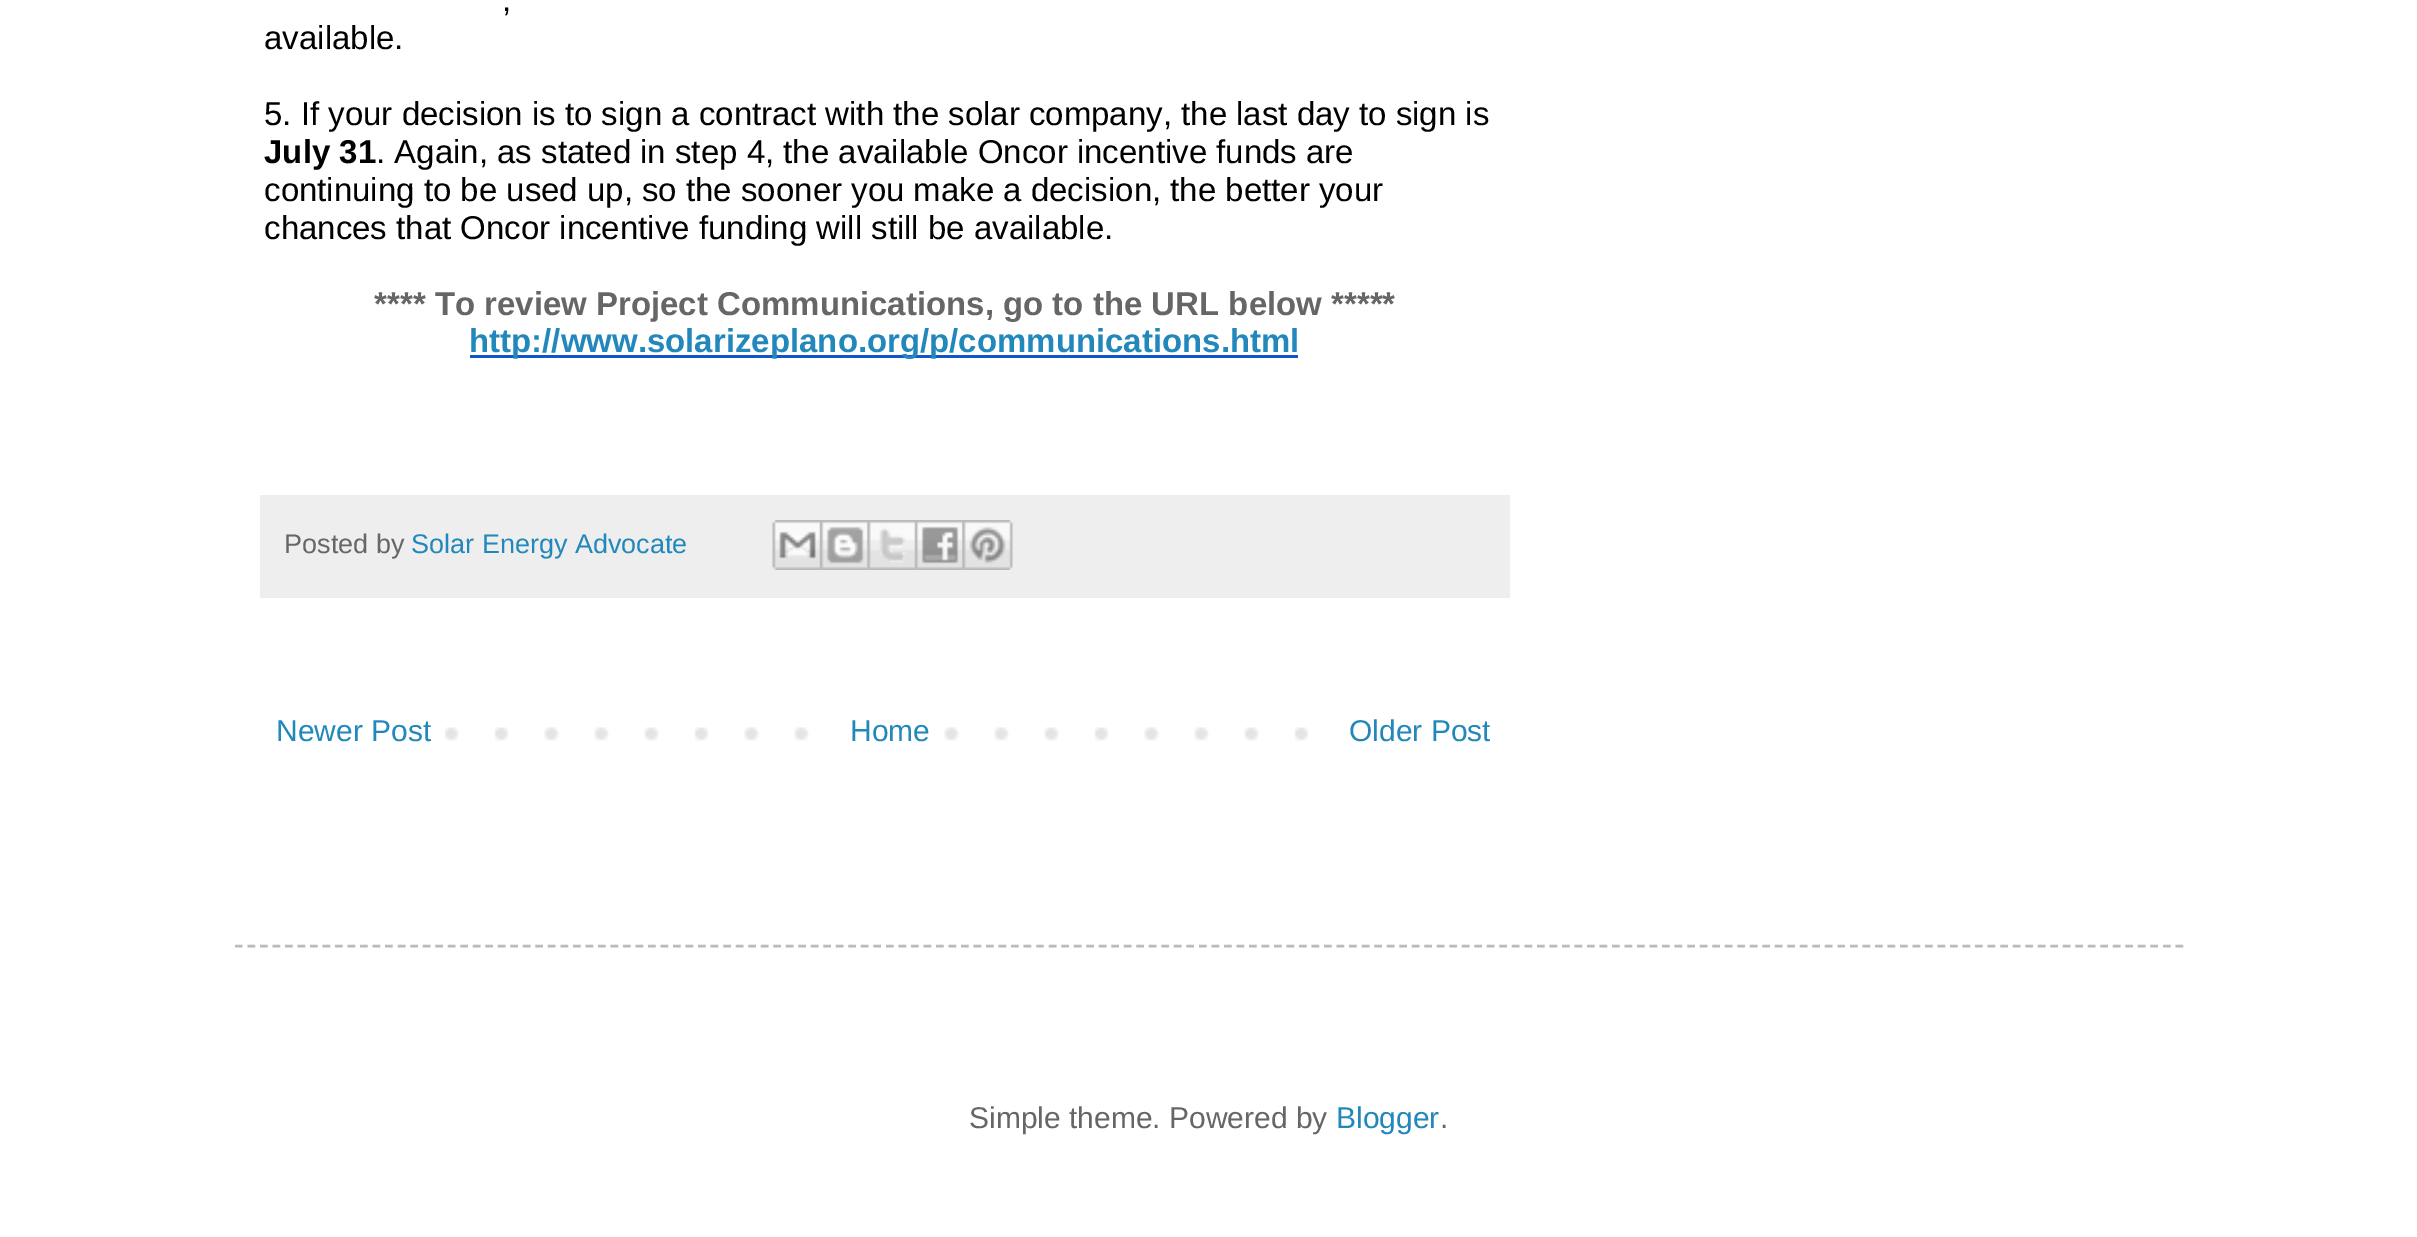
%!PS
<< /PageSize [2417 1237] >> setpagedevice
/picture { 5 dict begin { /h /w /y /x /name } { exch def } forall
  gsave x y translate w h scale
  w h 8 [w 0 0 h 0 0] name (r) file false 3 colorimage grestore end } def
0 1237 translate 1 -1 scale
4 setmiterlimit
1 setgray
0 0 2417 1237 rectfill
/LiberationSans-Regular [33 0 0 -33 0 0] selectfont
0 setgray
502 11 moveto (,) show
264 49 moveto (available.) show
264 125 moveto (5. If your decision is to sign a contract with the solar company, the last day to sign is) show
/LiberationSans-Bold [33 0 0 -33 0 0] selectfont
264 163 moveto (July 31) show
/LiberationSans-Regular [33 0 0 -33 0 0] selectfont
376 163 moveto (. Again, as stated in step 4, the available Oncor incentive funds are) show
264 201 moveto (continuing to be used up, so the sooner you make a decision, the better your) show
264 239 moveto (chances that Oncor incentive funding will still be available.) show
/LiberationSans-Bold [33 0 0 -33 0 0] selectfont
0.4 setgray
374 315 moveto (**** To review Project Communications, go to the URL below *****) show
0.067 0.333 0.8 setrgbcolor
470 355 828 3 rectfill
0.133 0.533 0.733 setrgbcolor
469 352 moveto (http://www.solarizeplano.org/p/communications.html) show
0.933 setgray
260 495 1250 103 rectfill
/LiberationSans-Regular [27 0 0 -27 0 0] selectfont
0.4 setgray
284 553 moveto (Posted by) show
0.133 0.533 0.733 setrgbcolor
411 553 moveto (Solar Energy Advocate) show
(img1.rgb) 772 520 48 50 picture
(img2.rgb) 820 520 48 50 picture
(img3.rgb) 867 520 48 50 picture
(img4.rgb) 915 520 48 50 picture
(img5.rgb) 962 520 51 50 picture
(img6.rgb) 445 727 864 14 picture
/LiberationSans-Regular [30 0 0 -30 0 0] selectfont
276 741 moveto (Newer Post) show
1 setgray
844 727 66 14 rectfill
0.133 0.533 0.733 setrgbcolor
850 741 moveto (Home) show
1349 741 moveto (Older Post) show
0.733 setgray
2.5 setlinewidth
[7.5 5.02] 0 setdash
newpath 235 946 moveto 2185 946 lineto stroke
0.4 setgray
969 1128 moveto (Simple theme. Powered by) show
0.133 0.533 0.733 setrgbcolor
1336 1128 moveto (Blogger) show
0.4 setgray
1440 1128 moveto (.) show
showpage
